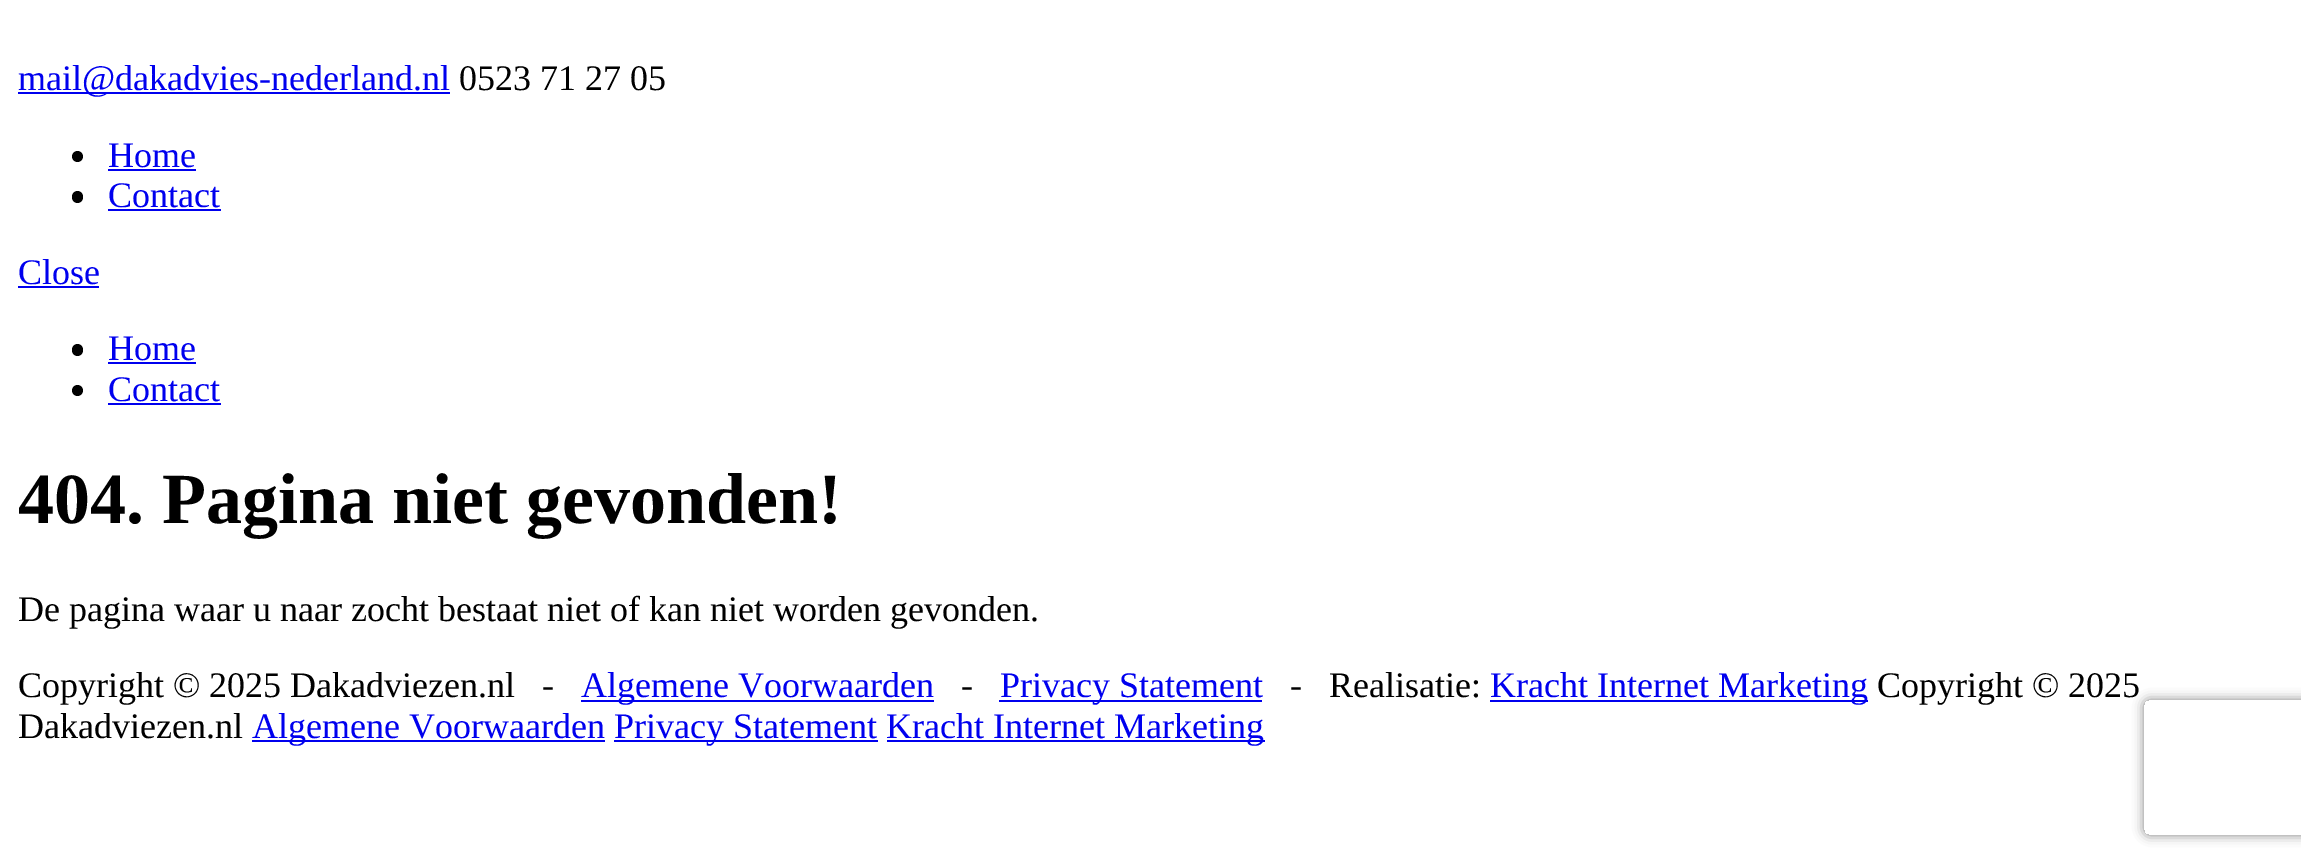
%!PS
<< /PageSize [2301 865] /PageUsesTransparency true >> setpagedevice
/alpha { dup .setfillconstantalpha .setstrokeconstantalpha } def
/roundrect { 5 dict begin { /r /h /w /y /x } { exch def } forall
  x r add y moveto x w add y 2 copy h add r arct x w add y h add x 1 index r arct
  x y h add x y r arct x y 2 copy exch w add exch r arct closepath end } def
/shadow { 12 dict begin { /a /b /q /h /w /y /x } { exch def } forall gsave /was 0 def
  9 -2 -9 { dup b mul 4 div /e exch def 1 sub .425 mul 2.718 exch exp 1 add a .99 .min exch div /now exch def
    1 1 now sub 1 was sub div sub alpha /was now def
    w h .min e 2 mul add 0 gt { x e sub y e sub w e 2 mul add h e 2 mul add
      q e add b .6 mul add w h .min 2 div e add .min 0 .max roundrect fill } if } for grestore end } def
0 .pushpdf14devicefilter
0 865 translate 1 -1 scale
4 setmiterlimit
1 setgray
0 0 2301 865 rectfill
0 0 0.933 setrgbcolor
18 92 432 2 rectfill
/LiberationSerif-Regular [36 0 0 -36 0 0] selectfont
18 90 moveto (mail@dakadvies-nederland.nl) show
0 setgray
459 90 moveto (0523 71 27 05) show
newpath 77.5 156.5 5.5 0 360 arc closepath fill
0 0 0.933 setrgbcolor
108 167 moveto (Home) show
108 169 88 2 rectfill
0 setgray
72 191 11 12 5.5 roundrect fill
0 0 0.933 setrgbcolor
108 207 moveto (Contact) show
108 209 113 2 rectfill
18 284 moveto (Close) show
18 286 81 2 rectfill
0 setgray
72 344 11 12 5.5 roundrect fill
0 0 0.933 setrgbcolor
108 360 moveto (Home) show
108 362 88 2 rectfill
0 setgray
newpath 77.5 390.5 5.5 0 360 arc closepath fill
0 0 0.933 setrgbcolor
108 401 moveto (Contact) show
108 403 113 2 rectfill
/LiberationSerif-Bold [72 0 0 -72 0 0] selectfont
0 setgray
18 523 moveto (404. Pagina niet gevonden!) show
/LiberationSerif-Regular [36 0 0 -36 0 0] selectfont
18 621 moveto (De pagina waar u naar zocht bestaat niet of kan niet worden gevonden.) show
18 697 moveto (Copyright © 2025 Dakadviezen.nl   -) show
0 0 0.933 setrgbcolor
581 700 353 2 rectfill
581 697 moveto (Algemene Voorwaarden) show
0 setgray
961 697 moveto (-) show
0 0 0.933 setrgbcolor
999 700 263 2 rectfill
1000 697 moveto (Privacy Statement) show
0 setgray
1290 697 moveto (-   Realisatie:) show
0 0 0.933 setrgbcolor
1490 700 378 2 rectfill
1490 697 moveto (Kracht Internet Marketing) show
0 setgray
1877 697 moveto (Copyright © 2025) show
18 738 moveto (Dakadviezen.nl) show
0 0 0.933 setrgbcolor
252 740 353 2 rectfill
252 738 moveto (Algemene Voorwaarden) show
614 740 264 2 rectfill
614 738 moveto (Privacy Statement) show
887 740 378 2 rectfill
886 738 moveto (Kracht Internet Marketing) show
gsave
newpath 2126 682 moveto 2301 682 lineto 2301 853 lineto 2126 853 lineto closepath 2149 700 moveto 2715 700 lineto 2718 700 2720 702 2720 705 curveto 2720 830 lineto 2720 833 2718 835 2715 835 curveto 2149 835 lineto 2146 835 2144 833 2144 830 curveto 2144 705 lineto 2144 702 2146 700 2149 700 curveto closepath eoclip newpath
0.502 setgray
2144 700 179 135 5 5.5 1 shadow
grestore
.poppdf14devicefilter showpage
